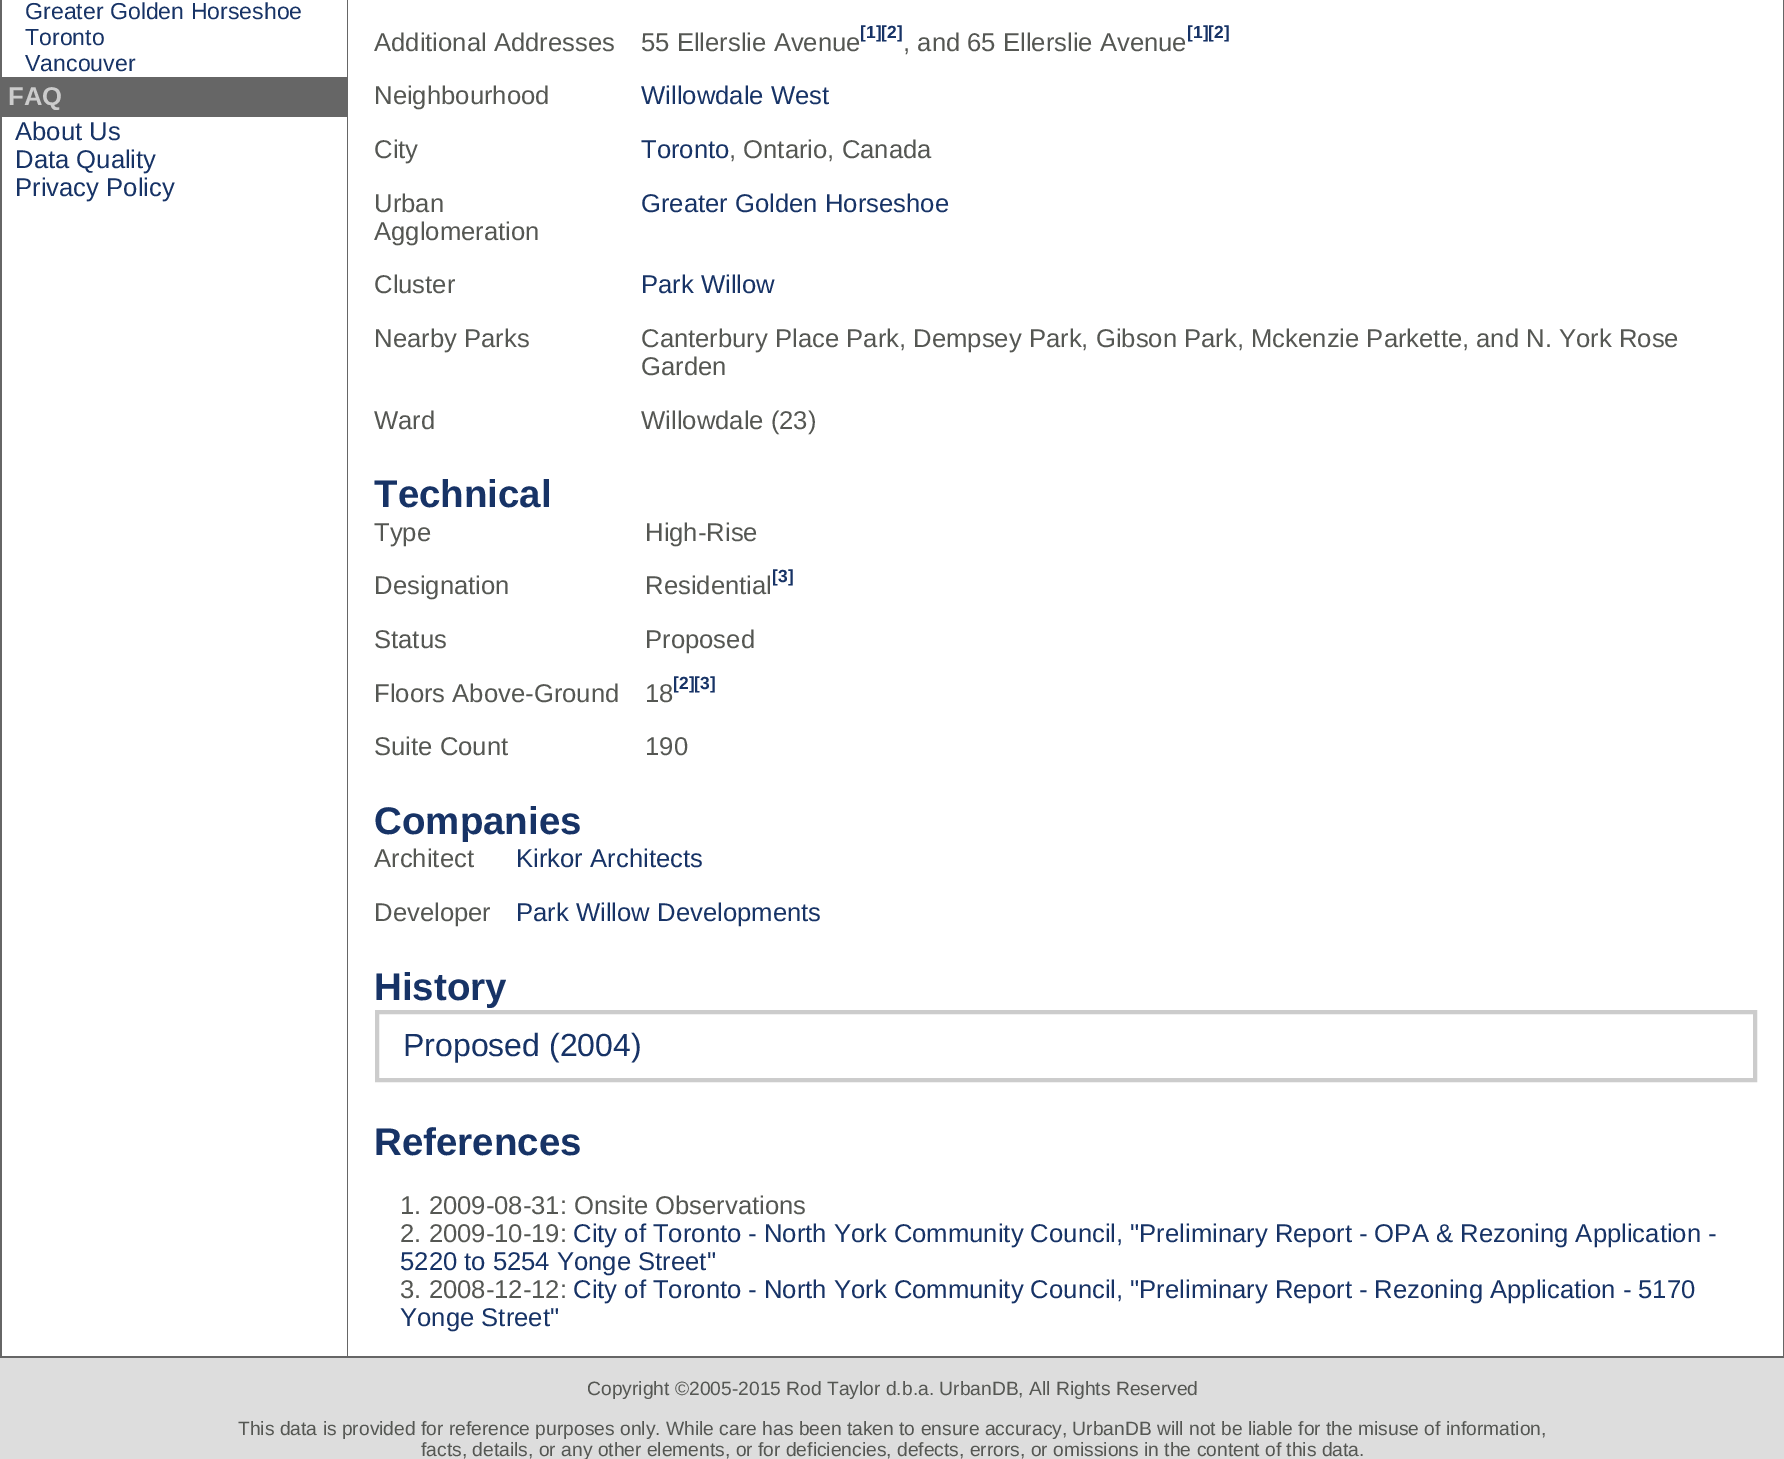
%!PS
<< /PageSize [1784 1459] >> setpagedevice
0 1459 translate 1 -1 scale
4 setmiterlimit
0.867 setgray
0 0 1784 1459 rectfill
1 setgray
2 0 345 1356 rectfill
0.4 setgray
347 0 1 1358 rectfill
0 1356 348 2 rectfill
0 0 2 1358 rectfill
/LiberationSans-Regular [23.1 0 0 -23.1 0 0] selectfont
0.09 0.2 0.4 setrgbcolor
25 19 moveto (Greater Golden Horseshoe) show
25 45 moveto (Toronto) show
25 71 moveto (Vancouver) show
0.4 setgray
2 77 345 40 rectfill
/LiberationSans-Bold [25.65 0 0 -25.65 0 0] selectfont
0.8 setgray
8 105 moveto (FAQ) show
/LiberationSans-Regular [25.65 0 0 -25.65 0 0] selectfont
0.09 0.2 0.4 setrgbcolor
15 140 moveto (About Us) show
15 168 moveto (Data Quality) show
15 196 moveto (Privacy Policy) show
1 setgray
348 0 1435 1356 rectfill
0.4 setgray
1783 0 1 1358 rectfill
348 1356 1436 2 rectfill
0.333 0.341 0.325 setrgbcolor
374 51 moveto (Additional Addresses) show
641 51 moveto (55 Ellerslie Avenue) show
/LiberationSans-Bold [17.5 0 0 -17.5 0 0] selectfont
0.09 0.2 0.4 setrgbcolor
860 38 moveto ([1][2]) show
/LiberationSans-Regular [25.65 0 0 -25.65 0 0] selectfont
0.333 0.341 0.325 setrgbcolor
903 51 moveto (, and 65 Ellerslie Avenue) show
/LiberationSans-Bold [17.5 0 0 -17.5 0 0] selectfont
0.09 0.2 0.4 setrgbcolor
1187 38 moveto ([1][2]) show
/LiberationSans-Regular [25.65 0 0 -25.65 0 0] selectfont
0.333 0.341 0.325 setrgbcolor
374 104 moveto (Neighbourhood) show
0.09 0.2 0.4 setrgbcolor
641 104 moveto (Willowdale West) show
0.333 0.341 0.325 setrgbcolor
374 158 moveto (City) show
0.09 0.2 0.4 setrgbcolor
641 158 moveto (Toronto) show
0.333 0.341 0.325 setrgbcolor
729 158 moveto (, Ontario, Canada) show
374 212 moveto (Urban) show
374 240 moveto (Agglomeration) show
0.09 0.2 0.4 setrgbcolor
641 212 moveto (Greater Golden Horseshoe) show
0.333 0.341 0.325 setrgbcolor
374 293 moveto (Cluster) show
0.09 0.2 0.4 setrgbcolor
641 293 moveto (Park Willow) show
0.333 0.341 0.325 setrgbcolor
374 347 moveto (Nearby Parks) show
641 347 moveto (Canterbury Place Park, Dempsey Park, Gibson Park, Mckenzie Parkette, and N. York Rose) show
641 375 moveto (Garden) show
374 429 moveto (Ward) show
641 429 moveto (Willowdale \(23\)) show
/LiberationSans-Bold [38.5 0 0 -38.5 0 0] selectfont
0.09 0.2 0.4 setrgbcolor
374 507 moveto (Technical) show
/LiberationSans-Regular [25.65 0 0 -25.65 0 0] selectfont
0.333 0.341 0.325 setrgbcolor
374 541 moveto (Type) show
645 541 moveto (High-Rise) show
374 594 moveto (Designation) show
645 594 moveto (Residential) show
/LiberationSans-Bold [17.5 0 0 -17.5 0 0] selectfont
0.09 0.2 0.4 setrgbcolor
772 582 moveto ([3]) show
/LiberationSans-Regular [25.65 0 0 -25.65 0 0] selectfont
0.333 0.341 0.325 setrgbcolor
374 648 moveto (Status) show
645 648 moveto (Proposed) show
374 702 moveto (Floors Above-Ground) show
645 702 moveto (18) show
/LiberationSans-Bold [17.5 0 0 -17.5 0 0] selectfont
0.09 0.2 0.4 setrgbcolor
673 689 moveto ([2][3]) show
/LiberationSans-Regular [25.65 0 0 -25.65 0 0] selectfont
0.333 0.341 0.325 setrgbcolor
374 755 moveto (Suite Count) show
645 755 moveto (190) show
/LiberationSans-Bold [38.5 0 0 -38.5 0 0] selectfont
0.09 0.2 0.4 setrgbcolor
374 834 moveto (Companies) show
/LiberationSans-Regular [25.65 0 0 -25.65 0 0] selectfont
0.333 0.341 0.325 setrgbcolor
374 867 moveto (Architect) show
0.09 0.2 0.4 setrgbcolor
516 867 moveto (Kirkor Architects) show
0.333 0.341 0.325 setrgbcolor
374 921 moveto (Developer) show
0.09 0.2 0.4 setrgbcolor
516 921 moveto (Park Willow Developments) show
/LiberationSans-Bold [38.5 0 0 -38.5 0 0] selectfont
374 1000 moveto (History) show
0.8 setgray
4 setlinewidth
377 1012 1378 68 rectstroke
/LiberationSans-Regular [32 0 0 -32 0 0] selectfont
0.09 0.2 0.4 setrgbcolor
403 1056 moveto (Proposed \(2004\)) show
/LiberationSans-Bold [38.5 0 0 -38.5 0 0] selectfont
374 1155 moveto (References) show
/LiberationSans-Regular [25.65 0 0 -25.65 0 0] selectfont
0.333 0.341 0.325 setrgbcolor
400 1214 moveto (1. 2009-08-31: Onsite Observations) show
400 1242 moveto (2. 2009-10-19:) show
0.09 0.2 0.4 setrgbcolor
573 1242 moveto (City of Toronto - North York Community Council, "Preliminary Report - OPA & Rezoning Application -) show
400 1270 moveto (5220 to 5254 Yonge Street") show
0.333 0.341 0.325 setrgbcolor
400 1298 moveto (3. 2008-12-12:) show
0.09 0.2 0.4 setrgbcolor
573 1298 moveto (City of Toronto - North York Community Council, "Preliminary Report - Rezoning Application - 5170) show
400 1326 moveto (Yonge Street") show
/LiberationSans-Regular [19.25 0 0 -19.25 0 0] selectfont
0.333 0.341 0.325 setrgbcolor
587 1395 moveto (Copyright ©2005-2015 Rod Taylor d.b.a. UrbanDB, All Rights Reserved) show
238 1435 moveto (This data is provided for reference purposes only. While care has been taken to ensure accuracy, UrbanDB will not be liable for the misuse of information,) show
421 1456 moveto (facts, details, or any other elements, or for deficiencies, defects, errors, or omissions in the content of this data.) show
showpage
